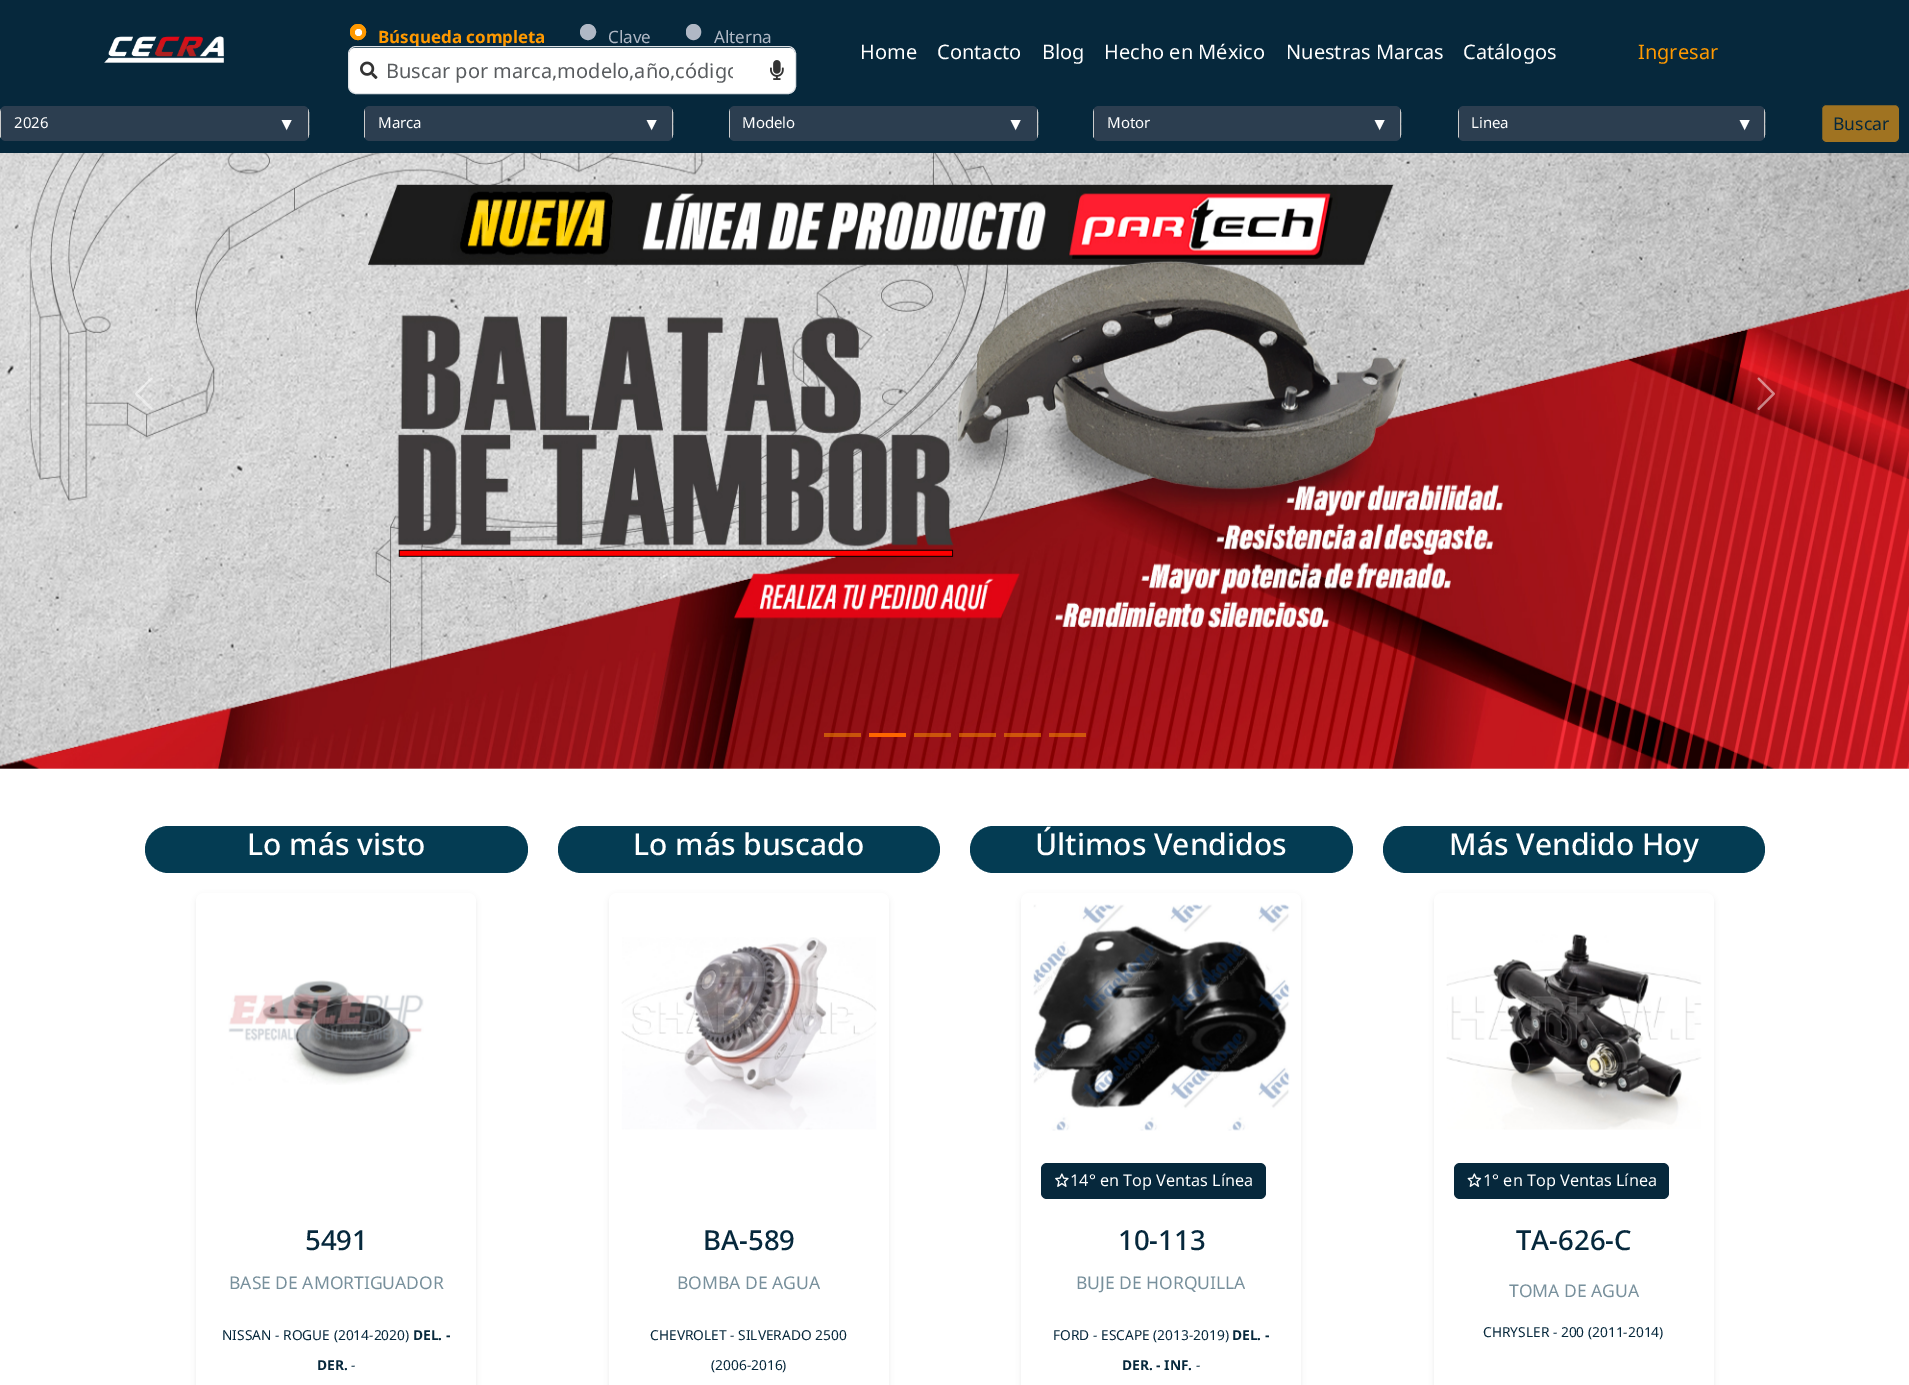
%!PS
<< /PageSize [1909 1385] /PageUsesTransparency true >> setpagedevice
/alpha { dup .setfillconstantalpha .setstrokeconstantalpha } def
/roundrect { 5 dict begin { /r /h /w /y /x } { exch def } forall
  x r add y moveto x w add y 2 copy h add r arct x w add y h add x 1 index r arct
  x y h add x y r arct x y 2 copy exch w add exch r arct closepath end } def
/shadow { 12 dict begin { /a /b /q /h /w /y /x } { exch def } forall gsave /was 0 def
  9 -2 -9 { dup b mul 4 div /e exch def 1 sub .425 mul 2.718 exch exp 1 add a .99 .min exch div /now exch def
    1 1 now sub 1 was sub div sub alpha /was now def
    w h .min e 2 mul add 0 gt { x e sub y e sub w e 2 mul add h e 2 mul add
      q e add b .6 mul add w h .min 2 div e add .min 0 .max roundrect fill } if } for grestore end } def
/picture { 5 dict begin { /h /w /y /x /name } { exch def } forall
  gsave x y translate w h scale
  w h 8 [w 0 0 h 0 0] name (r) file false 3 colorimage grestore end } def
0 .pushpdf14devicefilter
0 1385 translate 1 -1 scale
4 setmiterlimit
1 setgray
0 0 1909 1385 rectfill
0.024 0.157 0.235 setrgbcolor
0 0 1909 153 rectfill
(img1.rgb) 104 36 120 27 picture
1 0.6 0 setrgbcolor
newpath 358 32 8 0 360 arc closepath fill
1 setgray
newpath 358.5 32.5 3.5 0 360 arc closepath fill
1 0.6 0 setrgbcolor
newpath 358 32 7.5 0 360 arc closepath stroke
/NotoSans-Bold [17 0 0 -17 0 0] selectfont
378 43 moveto (Búsqueda completa) show
0.69 0.722 0.773 setrgbcolor
newpath 588 32 7.5 0 360 arc closepath gsave fill grestore
stroke
/NotoSans-Regular [17 0 0 -17 0 0] selectfont
608 43 moveto (Clave) show
686.5 24.5 14 15 7 roundrect gsave fill grestore
stroke
714 43 moveto (Alterna) show
1 setgray
349 48 446 45 6 roundrect fill
0.871 0.886 0.902 setrgbcolor
348.5 46.5 447 47 7.5 roundrect stroke
(img2.rgb) 360 61 18 18 picture
gsave
386 56 347 28 rectclip
/NotoSans-Regular [20 0 0 -20 0 0] selectfont
0.349 0.361 0.373 setrgbcolor
386 78 moveto (Buscar por marca,modelo,año,código) show
grestore
(img3.rgb) 770 60 14 20 picture
/NotoSans-Regular [20 0 0 -20 0 0] selectfont
1 setgray
860 59 moveto (Home) show
937 59 moveto (Contacto) show
1042 59 moveto (Blog) show
1104 59 moveto (Hecho en México) show
1286 59 moveto (Nuestras Marcas) show
1463 59 moveto (Catálogos) show
1 0.6 0 setrgbcolor
1638 59 moveto (Ingresar) show
0.173 0.243 0.314 setrgbcolor
0 106 309 35 6 roundrect fill
0.8 setgray
newpath 0 112 moveto 0 135 lineto 0 136 0 137 1 138 curveto 1 109 lineto closepath 308 109 moveto 308 138 lineto 310 135 309 127 309 124 curveto 309 120 310 112 308 109 curveto closepath eofill
/NotoSans-Regular [15 0 0 -15 0 0] selectfont
1 setgray
14 128 moveto (2026) show
/LiberationSans-Regular [17.5 0 0 -17.5 0 0] selectfont
278 130 moveto (▼) show
0.173 0.243 0.314 setrgbcolor
364 106 309 35 6 roundrect fill
0.8 setgray
newpath 364 112 moveto 364 135 lineto 364 136 364 137 365 138 curveto 365 109 lineto closepath 672 109 moveto 672 138 lineto 674 135 673 127 673 124 curveto 673 120 674 112 672 109 curveto closepath eofill
/NotoSans-Regular [15 0 0 -15 0 0] selectfont
1 setgray
378 128 moveto (Marca) show
/LiberationSans-Regular [17.5 0 0 -17.5 0 0] selectfont
643 130 moveto (▼) show
0.173 0.243 0.314 setrgbcolor
729 106 309 35 6 roundrect fill
0.8 setgray
newpath 729 112 moveto 729 135 lineto 729 136 729 137 730 138 curveto 730 109 lineto closepath 1037 109 moveto 1037 138 lineto 1039 135 1038 127 1038 124 curveto 1038 120 1039 112 1037 109 curveto closepath eofill
/NotoSans-Regular [15 0 0 -15 0 0] selectfont
1 setgray
742 128 moveto (Modelo) show
/LiberationSans-Regular [17.5 0 0 -17.5 0 0] selectfont
1007 130 moveto (▼) show
0.173 0.243 0.314 setrgbcolor
1093 106 308 35 6 roundrect fill
0.8 setgray
newpath 1093 112 moveto 1093 135 lineto 1093 136 1093 137 1094 138 curveto 1094 109 lineto closepath 1400 109 moveto 1400 138 lineto 1402 135 1401 127 1401 124 curveto 1401 120 1402 112 1400 109 curveto closepath eofill
/NotoSans-Regular [15 0 0 -15 0 0] selectfont
1 setgray
1107 128 moveto (Motor) show
/LiberationSans-Regular [17.5 0 0 -17.5 0 0] selectfont
1371 130 moveto (▼) show
0.173 0.243 0.314 setrgbcolor
1458 106 307 35 6 roundrect fill
0.8 setgray
newpath 1458 112 moveto 1458 135 lineto 1458 136 1458 137 1459 138 curveto 1459 109 lineto closepath 1764 109 moveto 1764 138 lineto 1766 135 1765 127 1765 124 curveto 1765 120 1766 112 1764 109 curveto closepath eofill
/NotoSans-Regular [15 0 0 -15 0 0] selectfont
1 setgray
1471 128 moveto (Linea) show
/LiberationSans-Regular [17.5 0 0 -17.5 0 0] selectfont
1736 130 moveto (▼) show
0.627 0.451 0.129 setrgbcolor
1821.5 104.5 78 38 4.5 roundrect gsave fill grestore
0.024 0.157 0.235 setrgbcolor
stroke
/NotoSans-Regular [17.5 0 0 -17.5 0 0] selectfont
1833 130 moveto (Buscar) show
(img4.rgb) 0 153 1909 616 picture
(img5.rgb) 135 377 18 33 picture
(img6.rgb) 1757 377 18 33 picture
0.5 alpha
1 0.6 0 setrgbcolor
824 733 37 4 rectfill
1 alpha
1 0.4 0 setrgbcolor
869 733 37 4 rectfill
0.5 alpha
1 0.6 0 setrgbcolor
914 733 37 4 rectfill
959 733 37 4 rectfill
1004 733 37 4 rectfill
1049 733 37 4 rectfill
1 alpha
0.016 0.235 0.325 setrgbcolor
145 826 383 47 23.5 roundrect fill
/NotoSans-Medium [30 0 0 -30 0 0] selectfont
1 setgray
247 855 moveto (Lo más visto) show
0 setgray
196 895 280 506 8 2.5 0.07 shadow
1 setgray
196 893 280 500 8 roundrect fill
(img7.rgb) 228 980 196 105 picture
/NotoSans-Medium [27.5 0 0 -27.5 0 0] selectfont
0.024 0.157 0.235 setrgbcolor
305 1250 moveto (5491) show
/NotoSans-Regular [17.5 0 0 -17.5 0 0] selectfont
0.471 0.565 0.612 setrgbcolor
229 1289 moveto (BASE DE AMORTIGUADOR) show
/NotoSans-Regular [13.75 0 0 -13.75 0 0] selectfont
0.024 0.157 0.235 setrgbcolor
222 1340 moveto (NISSAN - ROGUE \(2014-2020\)) show
/NotoSans-Bold [13.75 0 0 -13.75 0 0] selectfont
413 1340 moveto (DEL. -) show
317 1370 moveto (DER.) show
/NotoSans-Regular [13.75 0 0 -13.75 0 0] selectfont
351 1370 moveto (-) show
0.016 0.235 0.325 setrgbcolor
558 826 382 47 23.5 roundrect fill
/NotoSans-Medium [30 0 0 -30 0 0] selectfont
1 setgray
633 855 moveto (Lo más buscado) show
0 setgray
609 895 280 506 8 2.5 0.07 shadow
1 setgray
609 893 280 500 8 roundrect fill
(img8.rgb) 621 937 256 193 picture
/NotoSans-Medium [27.5 0 0 -27.5 0 0] selectfont
0.024 0.157 0.235 setrgbcolor
703 1250 moveto (BA-589) show
/NotoSans-Regular [17.5 0 0 -17.5 0 0] selectfont
0.471 0.565 0.612 setrgbcolor
677 1289 moveto (BOMBA DE AGUA) show
/NotoSans-Regular [13.75 0 0 -13.75 0 0] selectfont
0.024 0.157 0.235 setrgbcolor
650 1340 moveto (CHEVROLET - SILVERADO 2500) show
711 1370 moveto (\(2006-2016\)) show
0.016 0.235 0.325 setrgbcolor
970 826 383 47 23.5 roundrect fill
/NotoSans-Medium [30 0 0 -30 0 0] selectfont
1 setgray
1035 855 moveto (Últimos Vendidos) show
0 setgray
1021 895 280 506 8 2.5 0.07 shadow
1 setgray
1021 893 280 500 8 roundrect fill
(img9.rgb) 1033 904 257 227 picture
0.024 0.157 0.235 setrgbcolor
1041 1163 225 36 6 roundrect fill
(img10.rgb) 1055 1173 14 14 picture
/NotoSans-Regular [16.25 0 0 -16.25 0 0] selectfont
1 setgray
1070 1186 moveto (14° en Top Ventas Línea) show
/NotoSans-Medium [27.5 0 0 -27.5 0 0] selectfont
0.024 0.157 0.235 setrgbcolor
1118 1250 moveto (10-113) show
/NotoSans-Regular [17.5 0 0 -17.5 0 0] selectfont
0.471 0.565 0.612 setrgbcolor
1076 1289 moveto (BUJE DE HORQUILLA) show
/NotoSans-Regular [13.75 0 0 -13.75 0 0] selectfont
0.024 0.157 0.235 setrgbcolor
1053 1340 moveto (FORD - ESCAPE \(2013-2019\)) show
/NotoSans-Bold [13.75 0 0 -13.75 0 0] selectfont
1232 1340 moveto (DEL. -) show
1122 1370 moveto (DER. - INF.) show
/NotoSans-Regular [13.75 0 0 -13.75 0 0] selectfont
1196 1370 moveto (-) show
0.016 0.235 0.325 setrgbcolor
1383 826 382 47 23.5 roundrect fill
/NotoSans-Medium [30 0 0 -30 0 0] selectfont
1 setgray
1449 855 moveto (Más Vendido Hoy) show
0 setgray
1434 895 280 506 8 2.5 0.07 shadow
1 setgray
1434 893 280 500 8 roundrect fill
(img11.rgb) 1446 934 256 196 picture
0.024 0.157 0.235 setrgbcolor
1454 1163 215 36 6 roundrect fill
(img12.rgb) 1467 1173 15 14 picture
/NotoSans-Regular [16.25 0 0 -16.25 0 0] selectfont
1 setgray
1483 1186 moveto (1° en Top Ventas Línea) show
/NotoSans-Medium [27.5 0 0 -27.5 0 0] selectfont
0.024 0.157 0.235 setrgbcolor
1516 1250 moveto (TA-626-C) show
/NotoSans-Regular [17.5 0 0 -17.5 0 0] selectfont
0.471 0.565 0.612 setrgbcolor
1509 1297 moveto (TOMA DE AGUA) show
/NotoSans-Regular [13.75 0 0 -13.75 0 0] selectfont
0.024 0.157 0.235 setrgbcolor
1483 1337 moveto (CHRYSLER - 200 \(2011-2014\)) show
.poppdf14devicefilter showpage
